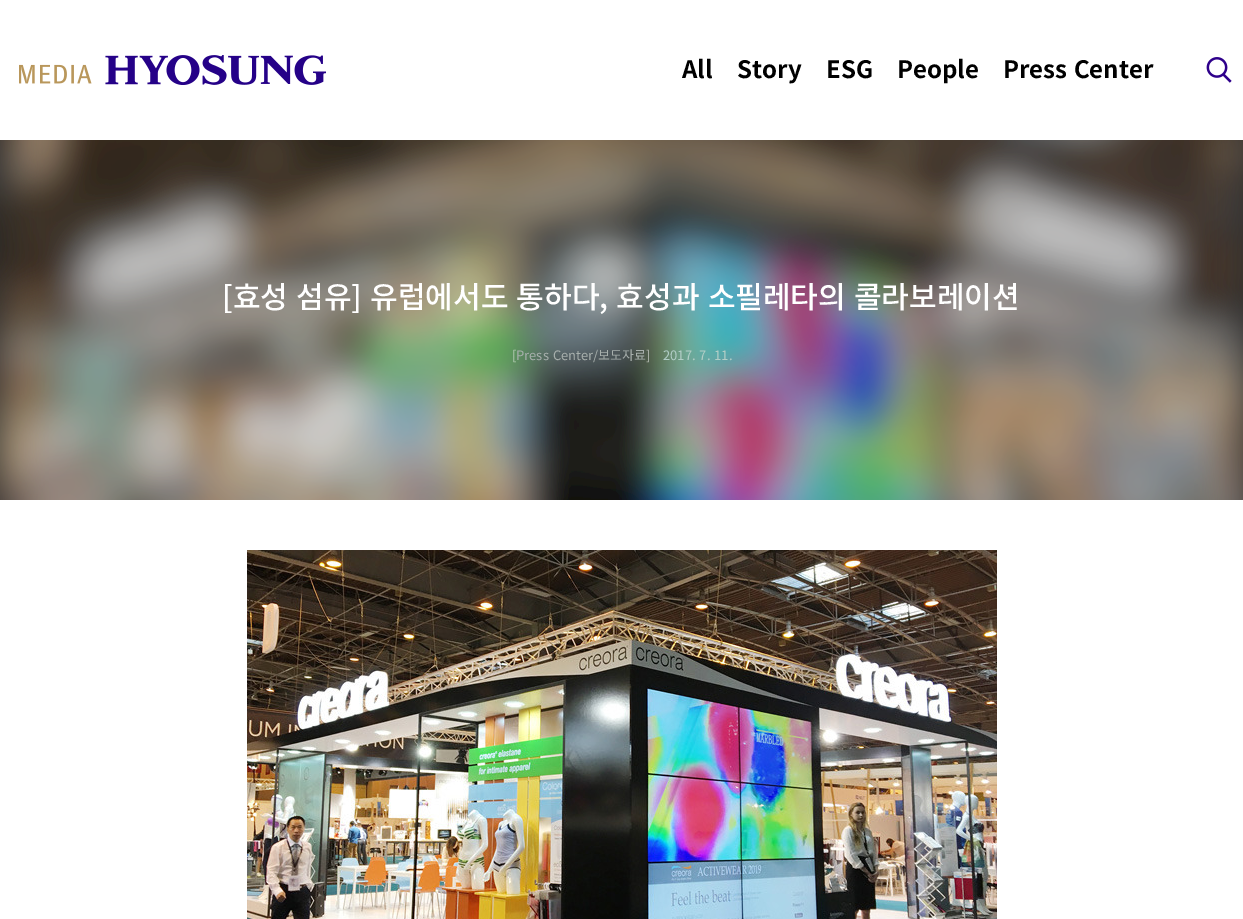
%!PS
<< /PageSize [1243 919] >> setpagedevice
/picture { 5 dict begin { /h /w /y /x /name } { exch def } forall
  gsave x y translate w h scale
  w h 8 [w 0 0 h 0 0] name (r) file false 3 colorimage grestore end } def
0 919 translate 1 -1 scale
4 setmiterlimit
1 setgray
0 0 1243 919 rectfill
(img1.rgb) 19 55 307 30 picture
/NotoSansKR-Bold [24 0 0 -24 0 0] selectfont
0 setgray
682 78 moveto (All) show
737 78 moveto (Story) show
826 78 moveto (ESG) show
897 78 moveto (People) show
1003 78 moveto 1 0 32 (Press Center) widthshow
(img2.rgb) 1206 57 26 26 picture
0.169 setgray
0 140 1243 360 rectfill
(img3.rgb) 0 140 1243 360 picture
/NotoSansKR-Medium [30 0 0 -30 0 0] selectfont
1 setgray
222 308 moveto 1.5 0 32 ([효성 섬유] 유럽에서도 통하다, 효성과 소필레타의 콜라보레이션) widthshow
/NotoSansKR-Regular [13 0 0 -13 0 0] selectfont
0.682 0.784 0.682 setrgbcolor
512 360 moveto ([) show
0.659 0.69 0.678 setrgbcolor
516 360 moveto 1 0 32 (Press Center/보도자료) widthshow
0.655 0.682 0.647 setrgbcolor
646 360 moveto (]) show
0.698 0.808 0.78 setrgbcolor
663 360 moveto 1 0 32 (2017. 7. 11.) widthshow
(img4.rgb) 247 550 750 369 picture
showpage
